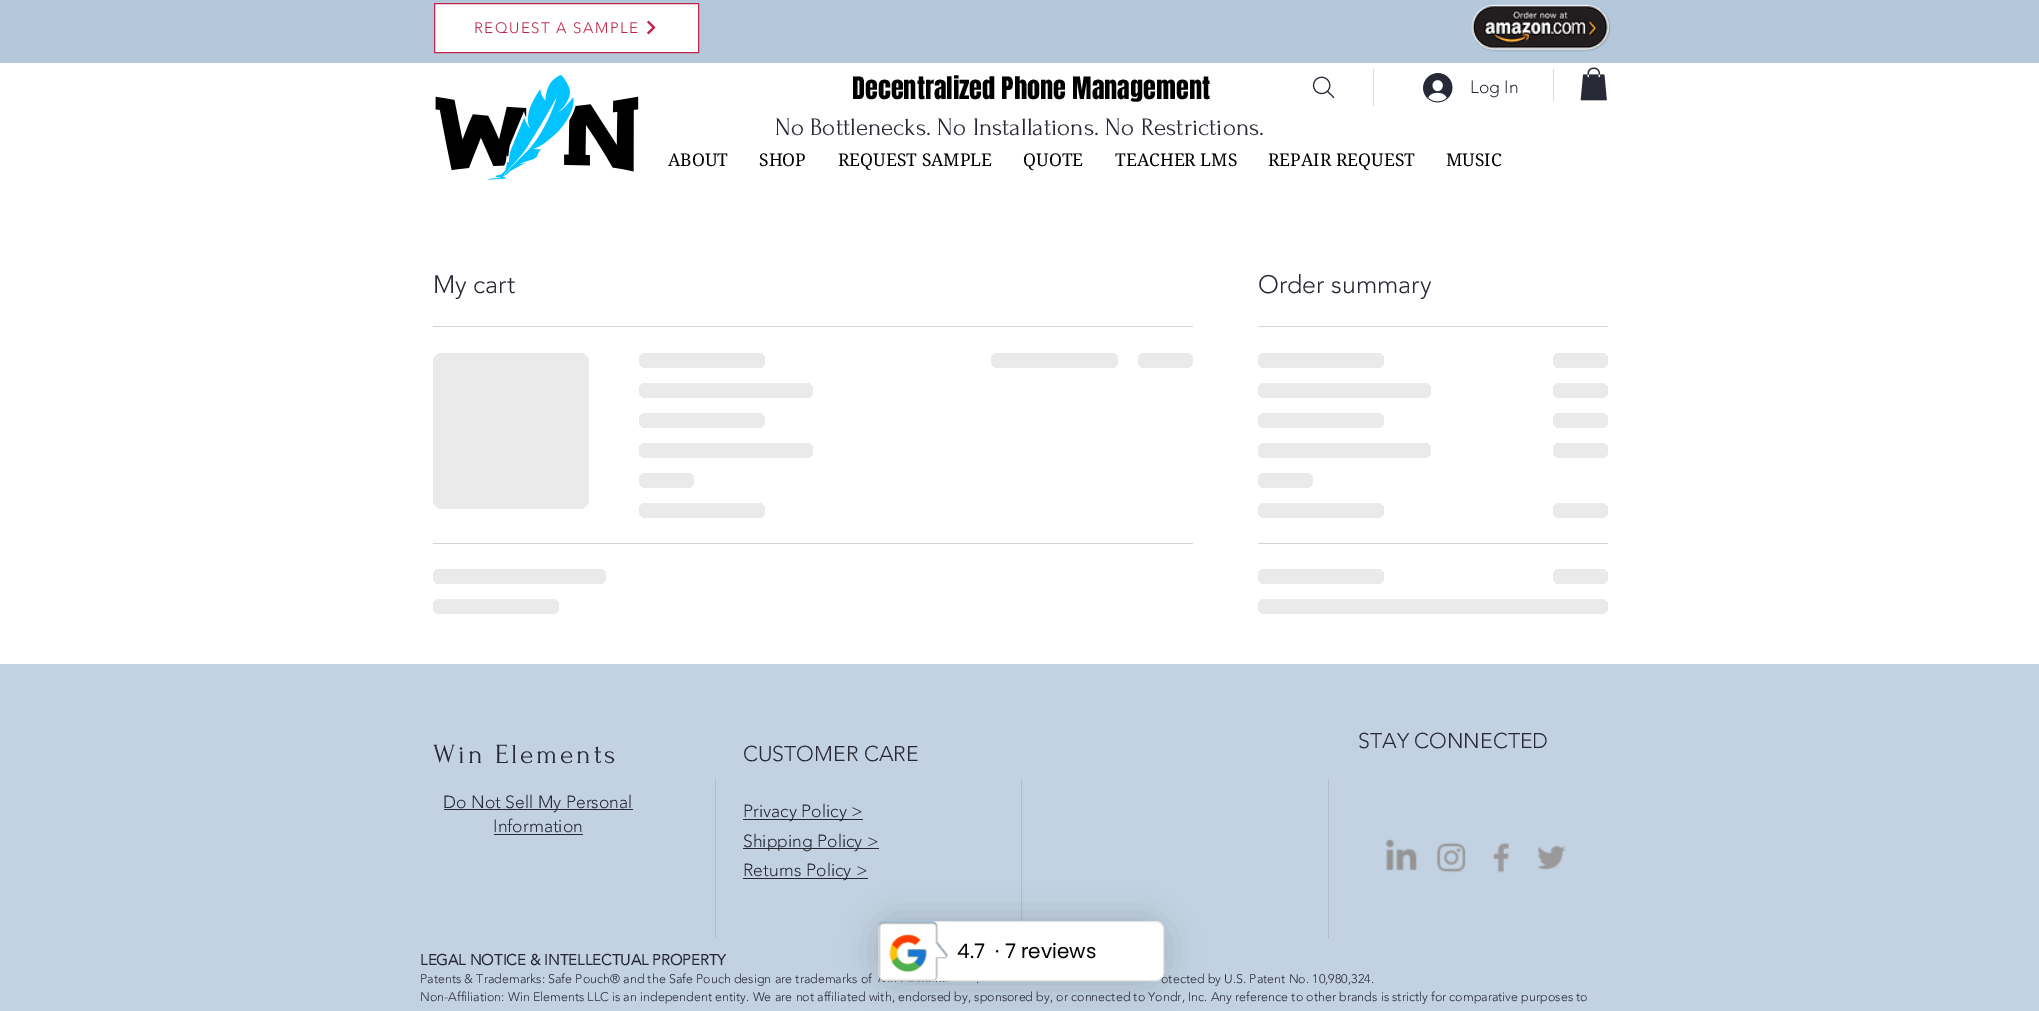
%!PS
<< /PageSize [2039 1011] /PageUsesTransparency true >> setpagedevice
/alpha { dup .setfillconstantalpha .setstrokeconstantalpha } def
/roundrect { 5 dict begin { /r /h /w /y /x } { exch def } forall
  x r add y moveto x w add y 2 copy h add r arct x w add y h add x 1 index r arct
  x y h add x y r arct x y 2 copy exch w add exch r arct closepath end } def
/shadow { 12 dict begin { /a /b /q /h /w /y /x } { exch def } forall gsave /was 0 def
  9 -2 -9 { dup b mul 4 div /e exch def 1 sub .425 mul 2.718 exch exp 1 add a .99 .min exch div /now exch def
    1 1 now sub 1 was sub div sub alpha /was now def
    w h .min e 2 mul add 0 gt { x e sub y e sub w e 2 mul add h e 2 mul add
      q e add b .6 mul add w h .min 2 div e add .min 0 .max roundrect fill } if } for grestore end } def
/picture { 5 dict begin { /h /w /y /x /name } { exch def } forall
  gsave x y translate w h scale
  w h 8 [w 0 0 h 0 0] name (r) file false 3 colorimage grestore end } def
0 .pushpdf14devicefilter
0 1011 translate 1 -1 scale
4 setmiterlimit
1 setgray
0 0 2039 1011 rectfill
0.706 0.784 0.863 setrgbcolor
0 0 2039 63 rectfill
1 setgray
newpath 434.5 3.5 moveto 698.5 3.5 lineto 698.5 52.5 lineto 434.5 52.5 lineto closepath gsave fill grestore
0.761 0.153 0.294 setrgbcolor
stroke
/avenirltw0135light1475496-Light [15 0 0 -15 0 0] selectfont
474 33 moveto 1.5 0 (REQUEST A SAMPLE) ashow
(img1.rgb) 647 20 9 15 picture
(img2.rgb) 1471 4 140 48 picture
(img3.rgb) 435 75 204 105 picture
/Anton-Regular [26.25 0 0 -26.25 0 0] selectfont
0 setgray
852 99 moveto (Decentralized Phone Management) show
(img4.rgb) 1312 76 23 23 picture
0.855 0.855 0.863 setrgbcolor
1373 69 1 37 rectfill
(img5.rgb) 1423 73 30 30 picture
/avenirltw0135light1475496-Light [17.5 0 0 -17.5 0 0] selectfont
0.157 0.161 0.212 setrgbcolor
1470 93 moveto (Log In) show
0.855 0.855 0.863 setrgbcolor
1553 69 1 32 rectfill
(img6.rgb) 1580 67 27 34 picture
/Forum-Regular [25 0 0 -25 0 0] selectfont
0.157 0.161 0.212 setrgbcolor
775 135 moveto (No Bottlenecks. No Installations. No Restrictions.) show
/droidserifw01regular-Regular [17.5 0 0 -17.5 0 0] selectfont
0 setgray
668 166 moveto (ABOUT) show
759 166 moveto (SHOP) show
838 166 moveto (REQUEST SAMPLE) show
1023 166 moveto (QUOTE) show
1115 166 moveto (TEACHER LMS) show
1268 166 moveto (REPAIR REQUEST) show
1446 166 moveto (MUSIC) show
0.831 0.831 0.843 setrgbcolor
433 326 760 1 rectfill
/avenirltw0135light1475496-Light [25 0 0 -25 0 0] selectfont
0.157 0.161 0.212 setrgbcolor
433 293 moveto (My cart) show
gsave 433 353 156 156 10 roundrect clip newpath
<< /ShadingType 2 /ColorSpace /DeviceRGB /Coords [433 431 1058 431] /Extend [true true] /Function << /FunctionType 3 /Domain [0 1] /Functions [<< /FunctionType 2 /Domain [0 1] /C0 [0.918 0.918 0.922] /C1 [0.918 0.918 0.922] /N 1 >> << /FunctionType 2 /Domain [0 1] /C0 [0.918 0.918 0.922] /C1 [0.831 0.831 0.843] /N 1 >> << /FunctionType 2 /Domain [0 1] /C0 [0.831 0.831 0.843] /C1 [0.918 0.918 0.922] /N 1 >> << /FunctionType 2 /Domain [0 1] /C0 [0.918 0.918 0.922] /C1 [0.918 0.918 0.922] /N 1 >>] /Bounds [0.25 0.37 0.63] /Encode [0 1 0 1 0 1 0 1] >> >> shfill grestore
gsave 639 353 126 15 7.5 roundrect clip newpath
<< /ShadingType 2 /ColorSpace /DeviceRGB /Coords [639 360 1144 360] /Extend [true true] /Function << /FunctionType 3 /Domain [0 1] /Functions [<< /FunctionType 2 /Domain [0 1] /C0 [0.918 0.918 0.922] /C1 [0.918 0.918 0.922] /N 1 >> << /FunctionType 2 /Domain [0 1] /C0 [0.918 0.918 0.922] /C1 [0.831 0.831 0.843] /N 1 >> << /FunctionType 2 /Domain [0 1] /C0 [0.831 0.831 0.843] /C1 [0.918 0.918 0.922] /N 1 >> << /FunctionType 2 /Domain [0 1] /C0 [0.918 0.918 0.922] /C1 [0.918 0.918 0.922] /N 1 >>] /Bounds [0.25 0.37 0.63] /Encode [0 1 0 1 0 1 0 1] >> >> shfill grestore
gsave 639 383 174 15 7.5 roundrect clip newpath
<< /ShadingType 2 /ColorSpace /DeviceRGB /Coords [639 390 1334 390] /Extend [true true] /Function << /FunctionType 3 /Domain [0 1] /Functions [<< /FunctionType 2 /Domain [0 1] /C0 [0.918 0.918 0.922] /C1 [0.918 0.918 0.922] /N 1 >> << /FunctionType 2 /Domain [0 1] /C0 [0.918 0.918 0.922] /C1 [0.831 0.831 0.843] /N 1 >> << /FunctionType 2 /Domain [0 1] /C0 [0.831 0.831 0.843] /C1 [0.918 0.918 0.922] /N 1 >> << /FunctionType 2 /Domain [0 1] /C0 [0.918 0.918 0.922] /C1 [0.918 0.918 0.922] /N 1 >>] /Bounds [0.25 0.37 0.63] /Encode [0 1 0 1 0 1 0 1] >> >> shfill grestore
gsave 639 413 126 15 7.5 roundrect clip newpath
<< /ShadingType 2 /ColorSpace /DeviceRGB /Coords [639 420 1144 420] /Extend [true true] /Function << /FunctionType 3 /Domain [0 1] /Functions [<< /FunctionType 2 /Domain [0 1] /C0 [0.918 0.918 0.922] /C1 [0.918 0.918 0.922] /N 1 >> << /FunctionType 2 /Domain [0 1] /C0 [0.918 0.918 0.922] /C1 [0.831 0.831 0.843] /N 1 >> << /FunctionType 2 /Domain [0 1] /C0 [0.831 0.831 0.843] /C1 [0.918 0.918 0.922] /N 1 >> << /FunctionType 2 /Domain [0 1] /C0 [0.918 0.918 0.922] /C1 [0.918 0.918 0.922] /N 1 >>] /Bounds [0.25 0.37 0.63] /Encode [0 1 0 1 0 1 0 1] >> >> shfill grestore
gsave 639 443 174 15 7.5 roundrect clip newpath
<< /ShadingType 2 /ColorSpace /DeviceRGB /Coords [639 450 1334 450] /Extend [true true] /Function << /FunctionType 3 /Domain [0 1] /Functions [<< /FunctionType 2 /Domain [0 1] /C0 [0.918 0.918 0.922] /C1 [0.918 0.918 0.922] /N 1 >> << /FunctionType 2 /Domain [0 1] /C0 [0.918 0.918 0.922] /C1 [0.831 0.831 0.843] /N 1 >> << /FunctionType 2 /Domain [0 1] /C0 [0.831 0.831 0.843] /C1 [0.918 0.918 0.922] /N 1 >> << /FunctionType 2 /Domain [0 1] /C0 [0.918 0.918 0.922] /C1 [0.918 0.918 0.922] /N 1 >>] /Bounds [0.25 0.37 0.63] /Encode [0 1 0 1 0 1 0 1] >> >> shfill grestore
gsave 639 473 55 15 7.5 roundrect clip newpath
<< /ShadingType 2 /ColorSpace /DeviceRGB /Coords [639 480 859 480] /Extend [true true] /Function << /FunctionType 3 /Domain [0 1] /Functions [<< /FunctionType 2 /Domain [0 1] /C0 [0.918 0.918 0.922] /C1 [0.918 0.918 0.922] /N 1 >> << /FunctionType 2 /Domain [0 1] /C0 [0.918 0.918 0.922] /C1 [0.831 0.831 0.843] /N 1 >> << /FunctionType 2 /Domain [0 1] /C0 [0.831 0.831 0.843] /C1 [0.918 0.918 0.922] /N 1 >> << /FunctionType 2 /Domain [0 1] /C0 [0.918 0.918 0.922] /C1 [0.918 0.918 0.922] /N 1 >>] /Bounds [0.25 0.37 0.63] /Encode [0 1 0 1 0 1 0 1] >> >> shfill grestore
gsave 639 503 126 15 7.5 roundrect clip newpath
<< /ShadingType 2 /ColorSpace /DeviceRGB /Coords [639 510 1144 510] /Extend [true true] /Function << /FunctionType 3 /Domain [0 1] /Functions [<< /FunctionType 2 /Domain [0 1] /C0 [0.918 0.918 0.922] /C1 [0.918 0.918 0.922] /N 1 >> << /FunctionType 2 /Domain [0 1] /C0 [0.918 0.918 0.922] /C1 [0.831 0.831 0.843] /N 1 >> << /FunctionType 2 /Domain [0 1] /C0 [0.831 0.831 0.843] /C1 [0.918 0.918 0.922] /N 1 >> << /FunctionType 2 /Domain [0 1] /C0 [0.918 0.918 0.922] /C1 [0.918 0.918 0.922] /N 1 >>] /Bounds [0.25 0.37 0.63] /Encode [0 1 0 1 0 1 0 1] >> >> shfill grestore
gsave 991 353 127 15 7.5 roundrect clip newpath
<< /ShadingType 2 /ColorSpace /DeviceRGB /Coords [991 360 1496 360] /Extend [true true] /Function << /FunctionType 3 /Domain [0 1] /Functions [<< /FunctionType 2 /Domain [0 1] /C0 [0.918 0.918 0.922] /C1 [0.918 0.918 0.922] /N 1 >> << /FunctionType 2 /Domain [0 1] /C0 [0.918 0.918 0.922] /C1 [0.831 0.831 0.843] /N 1 >> << /FunctionType 2 /Domain [0 1] /C0 [0.831 0.831 0.843] /C1 [0.918 0.918 0.922] /N 1 >> << /FunctionType 2 /Domain [0 1] /C0 [0.918 0.918 0.922] /C1 [0.918 0.918 0.922] /N 1 >>] /Bounds [0.25 0.37 0.63] /Encode [0 1 0 1 0 1 0 1] >> >> shfill grestore
gsave 1138 353 55 15 7.5 roundrect clip newpath
<< /ShadingType 2 /ColorSpace /DeviceRGB /Coords [1138 360 1358 360] /Extend [true true] /Function << /FunctionType 3 /Domain [0 1] /Functions [<< /FunctionType 2 /Domain [0 1] /C0 [0.918 0.918 0.922] /C1 [0.918 0.918 0.922] /N 1 >> << /FunctionType 2 /Domain [0 1] /C0 [0.918 0.918 0.922] /C1 [0.831 0.831 0.843] /N 1 >> << /FunctionType 2 /Domain [0 1] /C0 [0.831 0.831 0.843] /C1 [0.918 0.918 0.922] /N 1 >> << /FunctionType 2 /Domain [0 1] /C0 [0.918 0.918 0.922] /C1 [0.918 0.918 0.922] /N 1 >>] /Bounds [0.25 0.37 0.63] /Encode [0 1 0 1 0 1 0 1] >> >> shfill grestore
0.831 0.831 0.843 setrgbcolor
433 543 760 1 rectfill
gsave 433 569 173 15 7.5 roundrect clip newpath
<< /ShadingType 2 /ColorSpace /DeviceRGB /Coords [433 576 1128 576] /Extend [true true] /Function << /FunctionType 3 /Domain [0 1] /Functions [<< /FunctionType 2 /Domain [0 1] /C0 [0.918 0.918 0.922] /C1 [0.918 0.918 0.922] /N 1 >> << /FunctionType 2 /Domain [0 1] /C0 [0.918 0.918 0.922] /C1 [0.831 0.831 0.843] /N 1 >> << /FunctionType 2 /Domain [0 1] /C0 [0.831 0.831 0.843] /C1 [0.918 0.918 0.922] /N 1 >> << /FunctionType 2 /Domain [0 1] /C0 [0.918 0.918 0.922] /C1 [0.918 0.918 0.922] /N 1 >>] /Bounds [0.25 0.37 0.63] /Encode [0 1 0 1 0 1 0 1] >> >> shfill grestore
gsave 433 599 126 15 7.5 roundrect clip newpath
<< /ShadingType 2 /ColorSpace /DeviceRGB /Coords [433 606 938 606] /Extend [true true] /Function << /FunctionType 3 /Domain [0 1] /Functions [<< /FunctionType 2 /Domain [0 1] /C0 [0.918 0.918 0.922] /C1 [0.918 0.918 0.922] /N 1 >> << /FunctionType 2 /Domain [0 1] /C0 [0.918 0.918 0.922] /C1 [0.831 0.831 0.843] /N 1 >> << /FunctionType 2 /Domain [0 1] /C0 [0.831 0.831 0.843] /C1 [0.918 0.918 0.922] /N 1 >> << /FunctionType 2 /Domain [0 1] /C0 [0.918 0.918 0.922] /C1 [0.918 0.918 0.922] /N 1 >>] /Bounds [0.25 0.37 0.63] /Encode [0 1 0 1 0 1 0 1] >> >> shfill grestore
1258 326 350 1 rectfill
0.157 0.161 0.212 setrgbcolor
1258 293 moveto (Order summary) show
gsave 1258 353 126 15 7.5 roundrect clip newpath
<< /ShadingType 2 /ColorSpace /DeviceRGB /Coords [1258 360 1763 360] /Extend [true true] /Function << /FunctionType 3 /Domain [0 1] /Functions [<< /FunctionType 2 /Domain [0 1] /C0 [0.918 0.918 0.922] /C1 [0.918 0.918 0.922] /N 1 >> << /FunctionType 2 /Domain [0 1] /C0 [0.918 0.918 0.922] /C1 [0.831 0.831 0.843] /N 1 >> << /FunctionType 2 /Domain [0 1] /C0 [0.831 0.831 0.843] /C1 [0.918 0.918 0.922] /N 1 >> << /FunctionType 2 /Domain [0 1] /C0 [0.918 0.918 0.922] /C1 [0.918 0.918 0.922] /N 1 >>] /Bounds [0.25 0.37 0.63] /Encode [0 1 0 1 0 1 0 1] >> >> shfill grestore
gsave 1553 353 55 15 7.5 roundrect clip newpath
<< /ShadingType 2 /ColorSpace /DeviceRGB /Coords [1553 360 1773 360] /Extend [true true] /Function << /FunctionType 3 /Domain [0 1] /Functions [<< /FunctionType 2 /Domain [0 1] /C0 [0.918 0.918 0.922] /C1 [0.918 0.918 0.922] /N 1 >> << /FunctionType 2 /Domain [0 1] /C0 [0.918 0.918 0.922] /C1 [0.831 0.831 0.843] /N 1 >> << /FunctionType 2 /Domain [0 1] /C0 [0.831 0.831 0.843] /C1 [0.918 0.918 0.922] /N 1 >> << /FunctionType 2 /Domain [0 1] /C0 [0.918 0.918 0.922] /C1 [0.918 0.918 0.922] /N 1 >>] /Bounds [0.25 0.37 0.63] /Encode [0 1 0 1 0 1 0 1] >> >> shfill grestore
gsave 1258 383 173 15 7.5 roundrect clip newpath
<< /ShadingType 2 /ColorSpace /DeviceRGB /Coords [1258 390 1953 390] /Extend [true true] /Function << /FunctionType 3 /Domain [0 1] /Functions [<< /FunctionType 2 /Domain [0 1] /C0 [0.918 0.918 0.922] /C1 [0.918 0.918 0.922] /N 1 >> << /FunctionType 2 /Domain [0 1] /C0 [0.918 0.918 0.922] /C1 [0.831 0.831 0.843] /N 1 >> << /FunctionType 2 /Domain [0 1] /C0 [0.831 0.831 0.843] /C1 [0.918 0.918 0.922] /N 1 >> << /FunctionType 2 /Domain [0 1] /C0 [0.918 0.918 0.922] /C1 [0.918 0.918 0.922] /N 1 >>] /Bounds [0.25 0.37 0.63] /Encode [0 1 0 1 0 1 0 1] >> >> shfill grestore
gsave 1553 383 55 15 7.5 roundrect clip newpath
<< /ShadingType 2 /ColorSpace /DeviceRGB /Coords [1553 390 1773 390] /Extend [true true] /Function << /FunctionType 3 /Domain [0 1] /Functions [<< /FunctionType 2 /Domain [0 1] /C0 [0.918 0.918 0.922] /C1 [0.918 0.918 0.922] /N 1 >> << /FunctionType 2 /Domain [0 1] /C0 [0.918 0.918 0.922] /C1 [0.831 0.831 0.843] /N 1 >> << /FunctionType 2 /Domain [0 1] /C0 [0.831 0.831 0.843] /C1 [0.918 0.918 0.922] /N 1 >> << /FunctionType 2 /Domain [0 1] /C0 [0.918 0.918 0.922] /C1 [0.918 0.918 0.922] /N 1 >>] /Bounds [0.25 0.37 0.63] /Encode [0 1 0 1 0 1 0 1] >> >> shfill grestore
gsave 1258 413 126 15 7.5 roundrect clip newpath
<< /ShadingType 2 /ColorSpace /DeviceRGB /Coords [1258 420 1763 420] /Extend [true true] /Function << /FunctionType 3 /Domain [0 1] /Functions [<< /FunctionType 2 /Domain [0 1] /C0 [0.918 0.918 0.922] /C1 [0.918 0.918 0.922] /N 1 >> << /FunctionType 2 /Domain [0 1] /C0 [0.918 0.918 0.922] /C1 [0.831 0.831 0.843] /N 1 >> << /FunctionType 2 /Domain [0 1] /C0 [0.831 0.831 0.843] /C1 [0.918 0.918 0.922] /N 1 >> << /FunctionType 2 /Domain [0 1] /C0 [0.918 0.918 0.922] /C1 [0.918 0.918 0.922] /N 1 >>] /Bounds [0.25 0.37 0.63] /Encode [0 1 0 1 0 1 0 1] >> >> shfill grestore
gsave 1553 413 55 15 7.5 roundrect clip newpath
<< /ShadingType 2 /ColorSpace /DeviceRGB /Coords [1553 420 1773 420] /Extend [true true] /Function << /FunctionType 3 /Domain [0 1] /Functions [<< /FunctionType 2 /Domain [0 1] /C0 [0.918 0.918 0.922] /C1 [0.918 0.918 0.922] /N 1 >> << /FunctionType 2 /Domain [0 1] /C0 [0.918 0.918 0.922] /C1 [0.831 0.831 0.843] /N 1 >> << /FunctionType 2 /Domain [0 1] /C0 [0.831 0.831 0.843] /C1 [0.918 0.918 0.922] /N 1 >> << /FunctionType 2 /Domain [0 1] /C0 [0.918 0.918 0.922] /C1 [0.918 0.918 0.922] /N 1 >>] /Bounds [0.25 0.37 0.63] /Encode [0 1 0 1 0 1 0 1] >> >> shfill grestore
gsave 1258 443 173 15 7.5 roundrect clip newpath
<< /ShadingType 2 /ColorSpace /DeviceRGB /Coords [1258 450 1953 450] /Extend [true true] /Function << /FunctionType 3 /Domain [0 1] /Functions [<< /FunctionType 2 /Domain [0 1] /C0 [0.918 0.918 0.922] /C1 [0.918 0.918 0.922] /N 1 >> << /FunctionType 2 /Domain [0 1] /C0 [0.918 0.918 0.922] /C1 [0.831 0.831 0.843] /N 1 >> << /FunctionType 2 /Domain [0 1] /C0 [0.831 0.831 0.843] /C1 [0.918 0.918 0.922] /N 1 >> << /FunctionType 2 /Domain [0 1] /C0 [0.918 0.918 0.922] /C1 [0.918 0.918 0.922] /N 1 >>] /Bounds [0.25 0.37 0.63] /Encode [0 1 0 1 0 1 0 1] >> >> shfill grestore
gsave 1553 443 55 15 7.5 roundrect clip newpath
<< /ShadingType 2 /ColorSpace /DeviceRGB /Coords [1553 450 1773 450] /Extend [true true] /Function << /FunctionType 3 /Domain [0 1] /Functions [<< /FunctionType 2 /Domain [0 1] /C0 [0.918 0.918 0.922] /C1 [0.918 0.918 0.922] /N 1 >> << /FunctionType 2 /Domain [0 1] /C0 [0.918 0.918 0.922] /C1 [0.831 0.831 0.843] /N 1 >> << /FunctionType 2 /Domain [0 1] /C0 [0.831 0.831 0.843] /C1 [0.918 0.918 0.922] /N 1 >> << /FunctionType 2 /Domain [0 1] /C0 [0.918 0.918 0.922] /C1 [0.918 0.918 0.922] /N 1 >>] /Bounds [0.25 0.37 0.63] /Encode [0 1 0 1 0 1 0 1] >> >> shfill grestore
gsave 1258 473 55 15 7.5 roundrect clip newpath
<< /ShadingType 2 /ColorSpace /DeviceRGB /Coords [1258 480 1478 480] /Extend [true true] /Function << /FunctionType 3 /Domain [0 1] /Functions [<< /FunctionType 2 /Domain [0 1] /C0 [0.918 0.918 0.922] /C1 [0.918 0.918 0.922] /N 1 >> << /FunctionType 2 /Domain [0 1] /C0 [0.918 0.918 0.922] /C1 [0.831 0.831 0.843] /N 1 >> << /FunctionType 2 /Domain [0 1] /C0 [0.831 0.831 0.843] /C1 [0.918 0.918 0.922] /N 1 >> << /FunctionType 2 /Domain [0 1] /C0 [0.918 0.918 0.922] /C1 [0.918 0.918 0.922] /N 1 >>] /Bounds [0.25 0.37 0.63] /Encode [0 1 0 1 0 1 0 1] >> >> shfill grestore
gsave 1258 503 126 15 7.5 roundrect clip newpath
<< /ShadingType 2 /ColorSpace /DeviceRGB /Coords [1258 510 1763 510] /Extend [true true] /Function << /FunctionType 3 /Domain [0 1] /Functions [<< /FunctionType 2 /Domain [0 1] /C0 [0.918 0.918 0.922] /C1 [0.918 0.918 0.922] /N 1 >> << /FunctionType 2 /Domain [0 1] /C0 [0.918 0.918 0.922] /C1 [0.831 0.831 0.843] /N 1 >> << /FunctionType 2 /Domain [0 1] /C0 [0.831 0.831 0.843] /C1 [0.918 0.918 0.922] /N 1 >> << /FunctionType 2 /Domain [0 1] /C0 [0.918 0.918 0.922] /C1 [0.918 0.918 0.922] /N 1 >>] /Bounds [0.25 0.37 0.63] /Encode [0 1 0 1 0 1 0 1] >> >> shfill grestore
gsave 1553 503 55 15 7.5 roundrect clip newpath
<< /ShadingType 2 /ColorSpace /DeviceRGB /Coords [1553 510 1773 510] /Extend [true true] /Function << /FunctionType 3 /Domain [0 1] /Functions [<< /FunctionType 2 /Domain [0 1] /C0 [0.918 0.918 0.922] /C1 [0.918 0.918 0.922] /N 1 >> << /FunctionType 2 /Domain [0 1] /C0 [0.918 0.918 0.922] /C1 [0.831 0.831 0.843] /N 1 >> << /FunctionType 2 /Domain [0 1] /C0 [0.831 0.831 0.843] /C1 [0.918 0.918 0.922] /N 1 >> << /FunctionType 2 /Domain [0 1] /C0 [0.918 0.918 0.922] /C1 [0.918 0.918 0.922] /N 1 >>] /Bounds [0.25 0.37 0.63] /Encode [0 1 0 1 0 1 0 1] >> >> shfill grestore
0.831 0.831 0.843 setrgbcolor
1258 543 350 1 rectfill
gsave 1258 569 126 15 7.5 roundrect clip newpath
<< /ShadingType 2 /ColorSpace /DeviceRGB /Coords [1258 576 1763 576] /Extend [true true] /Function << /FunctionType 3 /Domain [0 1] /Functions [<< /FunctionType 2 /Domain [0 1] /C0 [0.918 0.918 0.922] /C1 [0.918 0.918 0.922] /N 1 >> << /FunctionType 2 /Domain [0 1] /C0 [0.918 0.918 0.922] /C1 [0.831 0.831 0.843] /N 1 >> << /FunctionType 2 /Domain [0 1] /C0 [0.831 0.831 0.843] /C1 [0.918 0.918 0.922] /N 1 >> << /FunctionType 2 /Domain [0 1] /C0 [0.918 0.918 0.922] /C1 [0.918 0.918 0.922] /N 1 >>] /Bounds [0.25 0.37 0.63] /Encode [0 1 0 1 0 1 0 1] >> >> shfill grestore
gsave 1553 569 55 15 7.5 roundrect clip newpath
<< /ShadingType 2 /ColorSpace /DeviceRGB /Coords [1553 576 1773 576] /Extend [true true] /Function << /FunctionType 3 /Domain [0 1] /Functions [<< /FunctionType 2 /Domain [0 1] /C0 [0.918 0.918 0.922] /C1 [0.918 0.918 0.922] /N 1 >> << /FunctionType 2 /Domain [0 1] /C0 [0.918 0.918 0.922] /C1 [0.831 0.831 0.843] /N 1 >> << /FunctionType 2 /Domain [0 1] /C0 [0.831 0.831 0.843] /C1 [0.918 0.918 0.922] /N 1 >> << /FunctionType 2 /Domain [0 1] /C0 [0.918 0.918 0.922] /C1 [0.918 0.918 0.922] /N 1 >>] /Bounds [0.25 0.37 0.63] /Encode [0 1 0 1 0 1 0 1] >> >> shfill grestore
gsave 1258 599 350 15 7.5 roundrect clip newpath
<< /ShadingType 2 /ColorSpace /DeviceRGB /Coords [1258 606 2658 606] /Extend [true true] /Function << /FunctionType 3 /Domain [0 1] /Functions [<< /FunctionType 2 /Domain [0 1] /C0 [0.918 0.918 0.922] /C1 [0.918 0.918 0.922] /N 1 >> << /FunctionType 2 /Domain [0 1] /C0 [0.918 0.918 0.922] /C1 [0.831 0.831 0.843] /N 1 >> << /FunctionType 2 /Domain [0 1] /C0 [0.831 0.831 0.843] /C1 [0.918 0.918 0.922] /N 1 >> << /FunctionType 2 /Domain [0 1] /C0 [0.918 0.918 0.922] /C1 [0.918 0.918 0.922] /N 1 >>] /Bounds [0.25 0.37 0.63] /Encode [0 1 0 1 0 1 0 1] >> >> shfill grestore
0.761 0.824 0.886 setrgbcolor
0 664 2039 347 rectfill
/avenirltw0135light1475496-Light [21.25 0 0 -21.25 0 0] selectfont
0.157 0.161 0.212 setrgbcolor
1358 748 moveto (STAY CONNECTED) show
/Forum-Regular [27.5 0 0 -27.5 0 0] selectfont
433 763 moveto 2.75 0 (Win Elements) ashow
0.698 0.737 0.788 setrgbcolor
715 779 1 159 rectfill
/avenirltw0135light1475496-Light [21.25 0 0 -21.25 0 0] selectfont
0.157 0.161 0.212 setrgbcolor
743 761 moveto (CUSTOMER CARE) show
743 819 120 1 rectfill
/avenirltw0135light1475496-Light [17.5 0 0 -17.5 0 0] selectfont
743 817 moveto (Privacy Policy >) show
743 848 136 1 rectfill
743 847 moveto (Shipping Policy >) show
743 878 125 1 rectfill
743 876 moveto (Returns Policy >) show
0.698 0.737 0.788 setrgbcolor
1021 779 1 142 rectfill
1328 779 1 159 rectfill
0.157 0.161 0.212 setrgbcolor
444 809 189 1 rectfill
443 808 moveto (Do Not Sell My Personal) show
493 832 moveto (Information) show
494 834 89 1 rectfill
(img7.rgb) 1386 839 31 32 picture
(img8.rgb) 1436 842 30 31 picture
(img9.rgb) 1493 842 16 31 picture
(img10.rgb) 1537 845 29 25 picture
/avenirltw0135light1475496-Bold [15 0 0 -15 0 0] selectfont
420 965 moveto (LEGAL NOTICE & INTELLECTUAL PROPERTY) show
/avenirltw0135light1475496-Light [12.5 0 0 -12.5 0 0] selectfont
420 983 moveto (Patents & Trademarks: Safe Pouch® and the Safe Pouch design are trademarks of) show
976 983 moveto (.) show
1161 983 moveto (otected by U.S. Patent No. 10,980,324.) show
420 1001 moveto (Non-Affiliation: Win Elements LLC is an independent entity. We are not affiliated with, endorsed by, sponsored by, or connected to Yondr, Inc. Any reference to other brands is strictly for comparative purposes to) show
0 setgray
870 914 301 75 37.5 15 0.12 shadow
1 setgray
878.5 921.5 285 59 7.5 roundrect gsave fill grestore
0.898 setgray
stroke
(img11.rgb) 878 921 70 61 picture
/Poppins-Regular [20 0 0 -20 0 0] selectfont
0 setgray
957 958 moveto (4.7) show
995 958 moveto (· 7 reviews) show
.poppdf14devicefilter showpage
